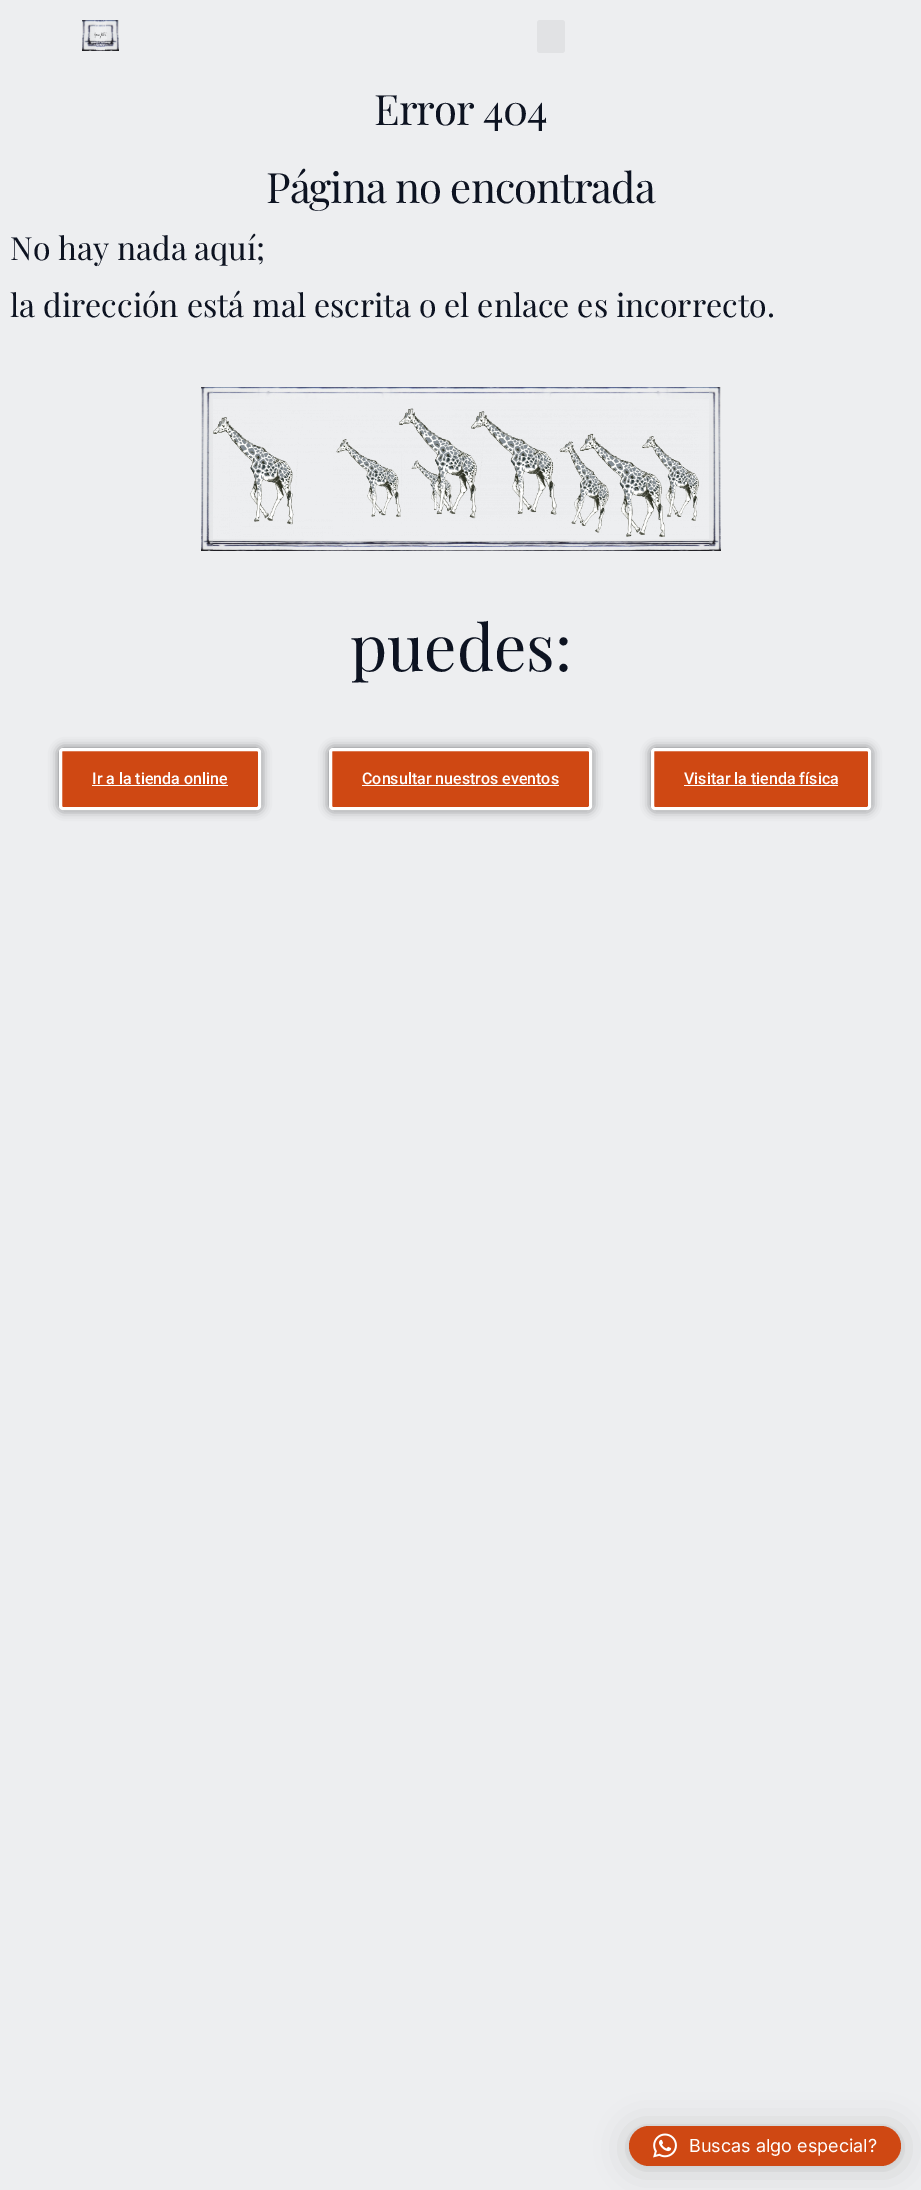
%!PS
<< /PageSize [921 2190] /PageUsesTransparency true >> setpagedevice
/alpha { dup .setfillconstantalpha .setstrokeconstantalpha } def
/roundrect { 5 dict begin { /r /h /w /y /x } { exch def } forall
  x r add y moveto x w add y 2 copy h add r arct x w add y h add x 1 index r arct
  x y h add x y r arct x y 2 copy exch w add exch r arct closepath end } def
/shadow { 12 dict begin { /a /b /q /h /w /y /x } { exch def } forall gsave /was 0 def
  9 -2 -9 { dup b mul 4 div /e exch def 1 sub .425 mul 2.718 exch exp 1 add a .99 .min exch div /now exch def
    1 1 now sub 1 was sub div sub alpha /was now def
    w h .min e 2 mul add 0 gt { x e sub y e sub w e 2 mul add h e 2 mul add
      q e add b .6 mul add w h .min 2 div e add .min 0 .max roundrect fill } if } for grestore end } def
/picture { 5 dict begin { /h /w /y /x /name } { exch def } forall
  gsave x y translate w h scale
  w h 8 [w 0 0 h 0 0] name (r) file false 3 colorimage grestore end } def
0 .pushpdf14devicefilter
0 2190 translate 1 -1 scale
4 setmiterlimit
0.929 0.933 0.941 setrgbcolor
0 0 921 2190 rectfill
(img1.rgb) 82 20 37 31 picture
(img2.rgb) 94 32 13 7 picture
0.882 0.886 0.894 setrgbcolor
537 20 28 33 3 roundrect fill
/PlayfairDisplay-Regular [41.9 0 0 -41.9 0 0] selectfont
0.051 0.075 0.129 setrgbcolor
374 125 moveto -1 0 (Error 404) ashow
266 203 moveto -1 0 (Página no encontrada) ashow
/PlayfairDisplay-Regular [32 0 0 -32 0 0] selectfont
10 260 moveto (No hay nada aquí;) show
10 317 moveto (la dirección está mal escrita o el enlace es incorrecto.) show
(img3.rgb) 201 387 520 164 picture
(img4.rgb) 213 408 486 129 picture
/PlayfairDisplay-Regular [64 0 0 -64 0 0] selectfont
350 671 moveto (puedes:) show
0 setgray
59 748 202 62 4 5 0.5 shadow
0.812 0.282 0.075 setrgbcolor
60.5 749.5 199 59 2.5 roundrect gsave fill grestore
1 setgray
3 setlinewidth
stroke
/Roboto-Medium [16 0 0 -16 0 0] selectfont
92 784 moveto (Ir a la tienda online) show
92 785 136 1 rectfill
0 setgray
329 748 263 62 4 5 0.5 shadow
0.812 0.282 0.075 setrgbcolor
330.5 749.5 260 59 2.5 roundrect gsave fill grestore
1 setgray
stroke
362 784 moveto (Consultar nuestros eventos) show
362 785 197 1 rectfill
0 setgray
651 748 220 62 4 5 0.5 shadow
0.812 0.282 0.075 setrgbcolor
652.5 749.5 217 59 2.5 roundrect gsave fill grestore
1 setgray
stroke
684 784 moveto (Visitar la tienda física) show
684 785 154 1 rectfill
0 setgray
629 2128 272 40 20 16 0.16 shadow
629 2127 272 40 20 3 0.06 shadow
0.812 0.282 0.075 setrgbcolor
629 2126 272 40 20 roundrect fill
(img5.rgb) 653 2133 24 25 picture
/Inter-Regular [18 0 0 -18 0 0] selectfont
1 setgray
689 2152 moveto (Buscas algo especial?) show
.poppdf14devicefilter showpage
